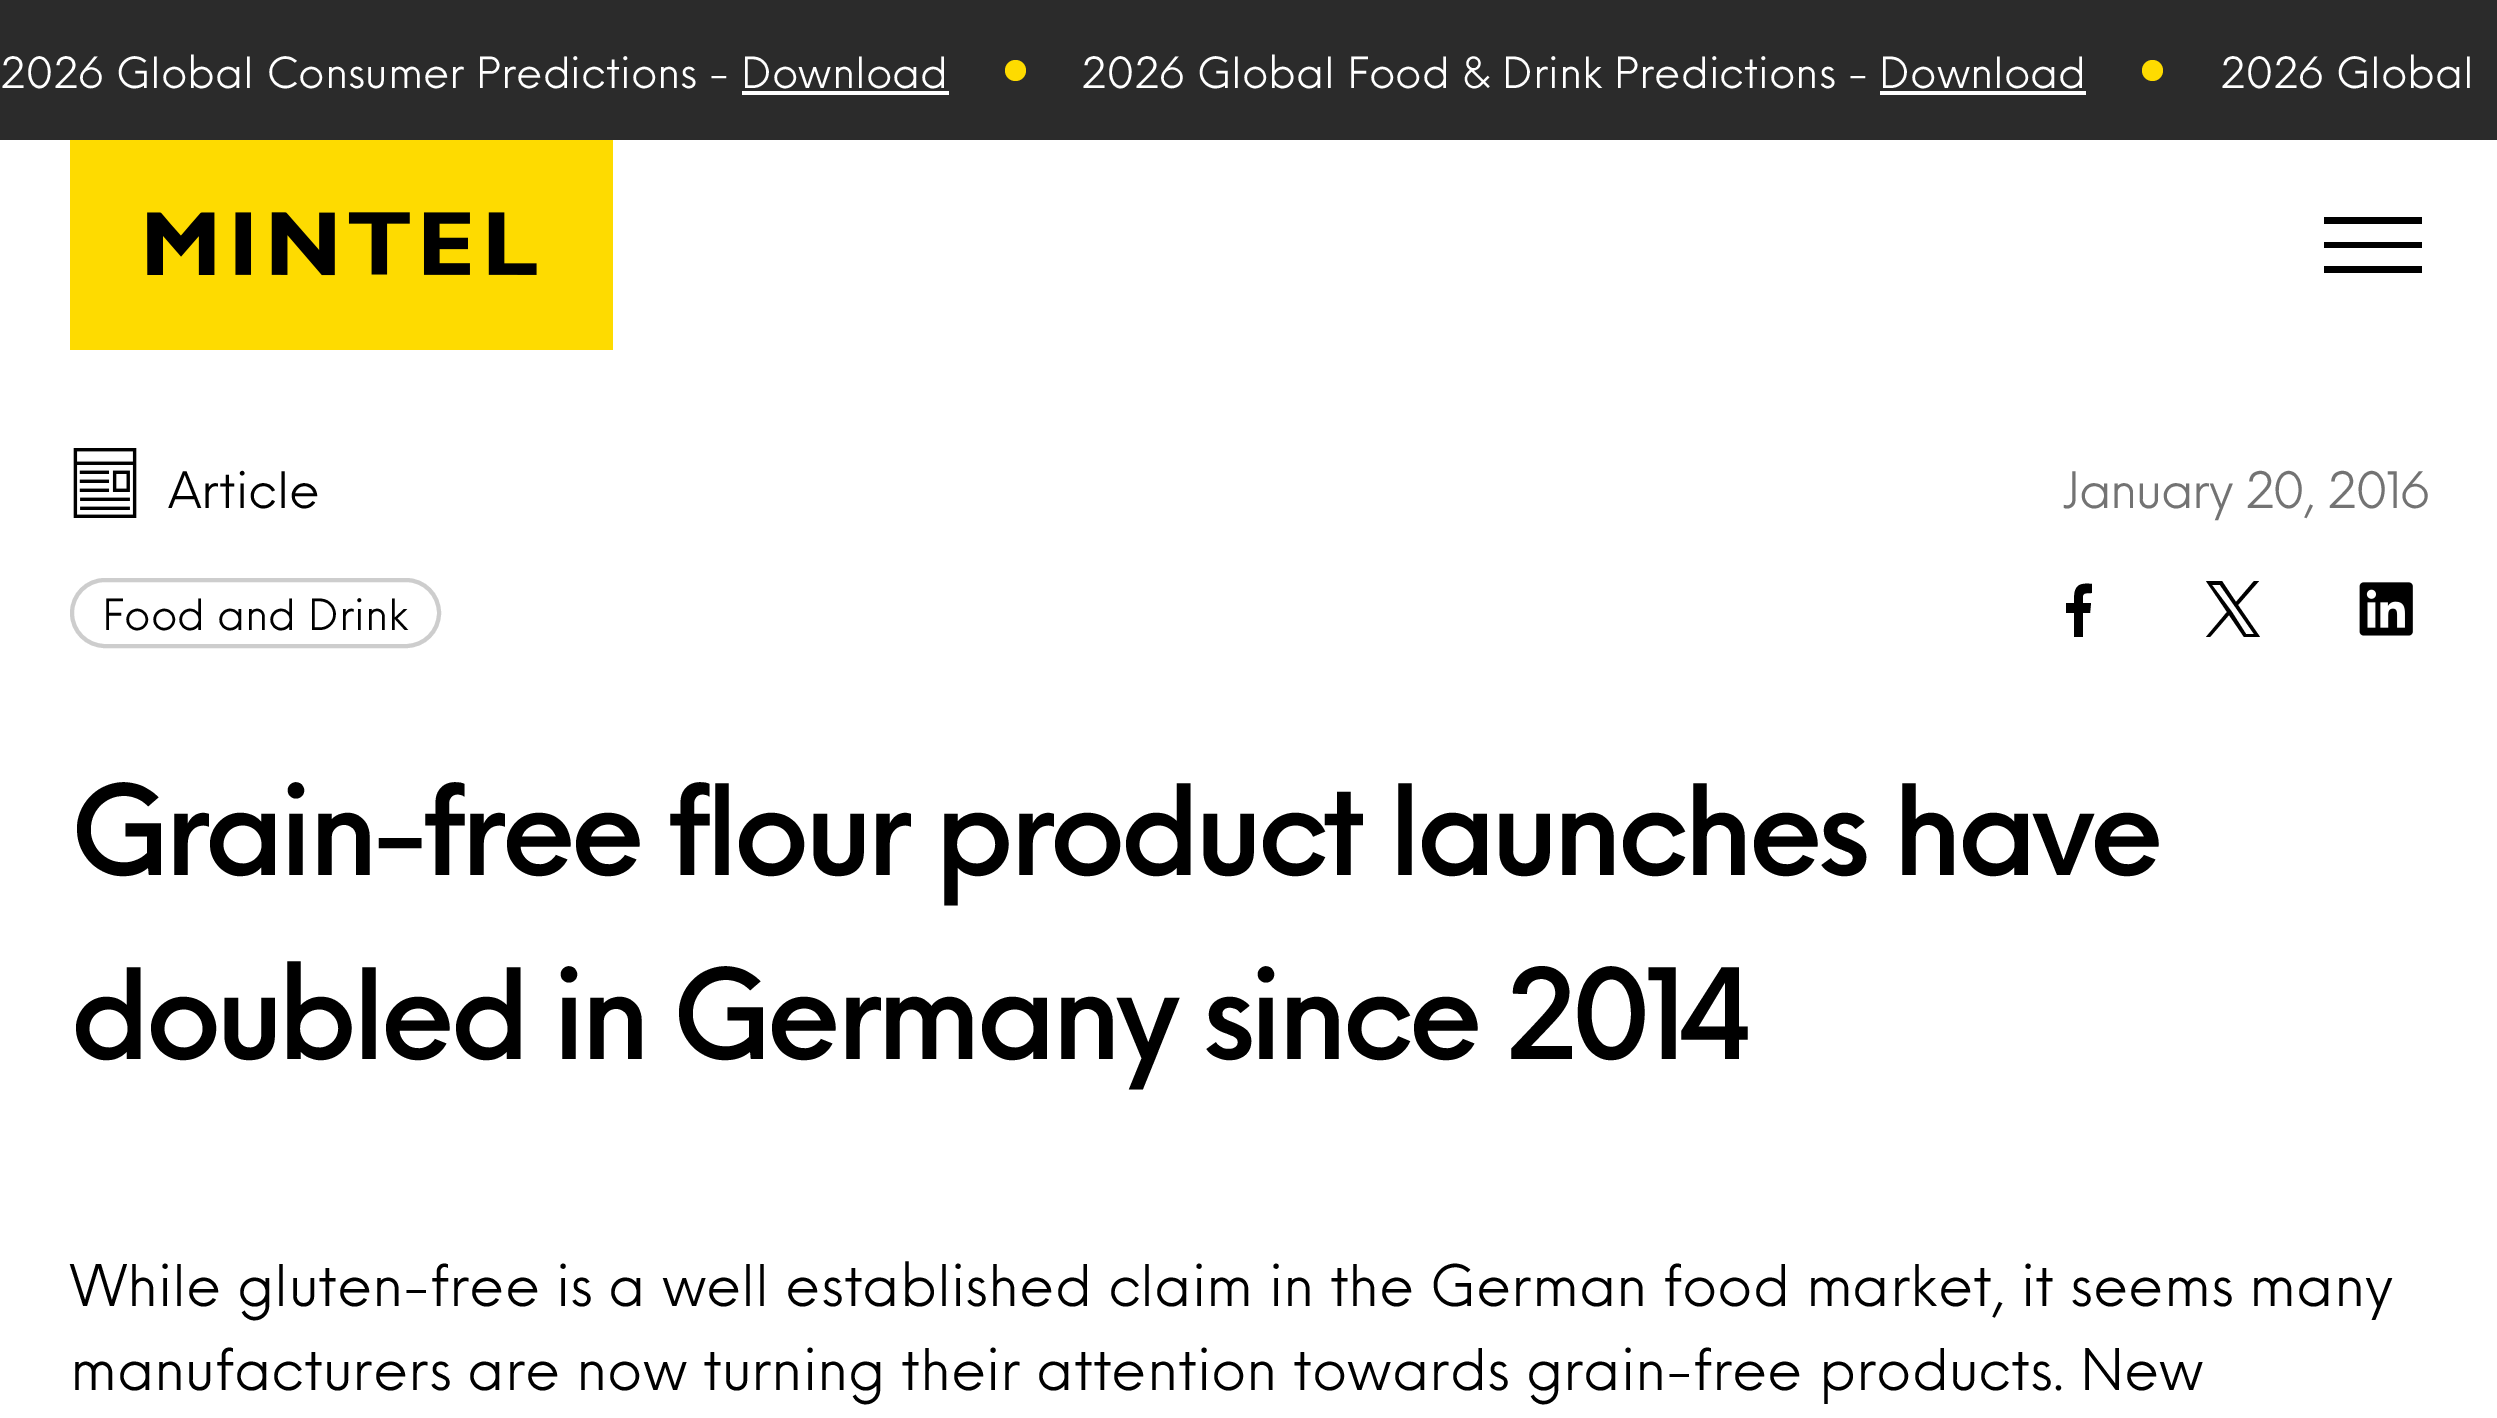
%!PS
<< /PageSize [2497 1418] >> setpagedevice
/roundrect { 5 dict begin { /r /h /w /y /x } { exch def } forall
  x r add y moveto x w add y 2 copy h add r arct x w add y h add x 1 index r arct
  x y h add x y r arct x y 2 copy exch w add exch r arct closepath end } def
/picture { 5 dict begin { /h /w /y /x /name } { exch def } forall
  gsave x y translate w h scale
  w h 8 [w 0 0 h 0 0] name (r) file false 3 colorimage grestore end } def
0 1418 translate 1 -1 scale
4 setmiterlimit
1 setgray
0 0 2497 1418 rectfill
0.169 setgray
0 0 2497 140 rectfill
/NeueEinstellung-Regular [42 0 0 -42 0 0] selectfont
1 setgray
0 88 moveto (2026 Global Consumer Predictions - Download) show
0.996 0.859 0 setrgbcolor
newpath 1015.5 70.5 10.5 0 360 arc closepath fill
1 setgray
742 91 207 4 rectfill
1081 88 moveto (2026 Global Food & Drink Predictions - Download) show
0.996 0.859 0 setrgbcolor
newpath 2152.5 70.5 10.5 0 360 arc closepath fill
1 setgray
1880 91 206 4 rectfill
2220 88 moveto (2026 Global) show
0.996 0.859 0 setrgbcolor
70 140 543 210 rectfill
(img1.rgb) 147 212 390 64 picture
0 setgray
newpath 2422 242 moveto 2422 248 lineto 2324 248 lineto 2324 242 lineto closepath 2422 217 moveto 2422 224 lineto 2324 224 lineto 2324 217 lineto closepath 2422 266 moveto 2422 273 lineto 2324 273 lineto 2324 266 lineto closepath fill
(img2.rgb) 73 448 64 70 picture
/NeueEinstellung-Regular [49 0 0 -49 0 0] selectfont
168 508 moveto (Article) show
0.804 setgray
4 setlinewidth
72 580 367 66 33 roundrect stroke
/NeueEinstellung-Regular [42 0 0 -42 0 0] selectfont
0 setgray
102 630 moveto (Food and Drink) show
/NeueEinstellung-Regular [49 0 0 -49 0 0] selectfont
0.451 setgray
2062 508 moveto -1.25 0 (January 20, 2016) ashow
0 setgray
newpath 2074 637 moveto 2074 613 lineto 2066 613 lineto 2066 603 lineto 2074 603 lineto 2074 589 2075 582 2092 584 curveto 2092 593 lineto 2081 593 2083 594 2083 603 curveto 2091 603 lineto 2090 613 lineto 2083 613 lineto 2083 637 lineto closepath fill
newpath 2238 605 moveto 2259 581 lineto 2254 581 lineto 2236 602 lineto 2222 581 lineto 2206 581 lineto 2227 612 lineto 2206 637 lineto 2210 637 lineto 2229 615 lineto 2244 637 lineto 2260 637 lineto closepath 2232 612 moveto 2212 585 lineto 2220 585 lineto 2254 634 lineto 2246 634 lineto closepath fill
(img3.rgb) 2359 582 54 54 picture
/NeueEinstellung-Medium [122.5 0 0 -122.5 0 0] selectfont
70 875 moveto -6.1 0 (Grain-free flour product launches have) ashow
70 1059 moveto -6.1 0 (doubled in Germany since 2014) ashow
/NeueEinstellung-Regular [56 0 0 -56 0 0] selectfont
70 1306 moveto (While gluten-free is a well established claim in the German food market, it seems many) show
70 1390 moveto (manufacturers are now turning their attention towards grain-free products. New) show
showpage
